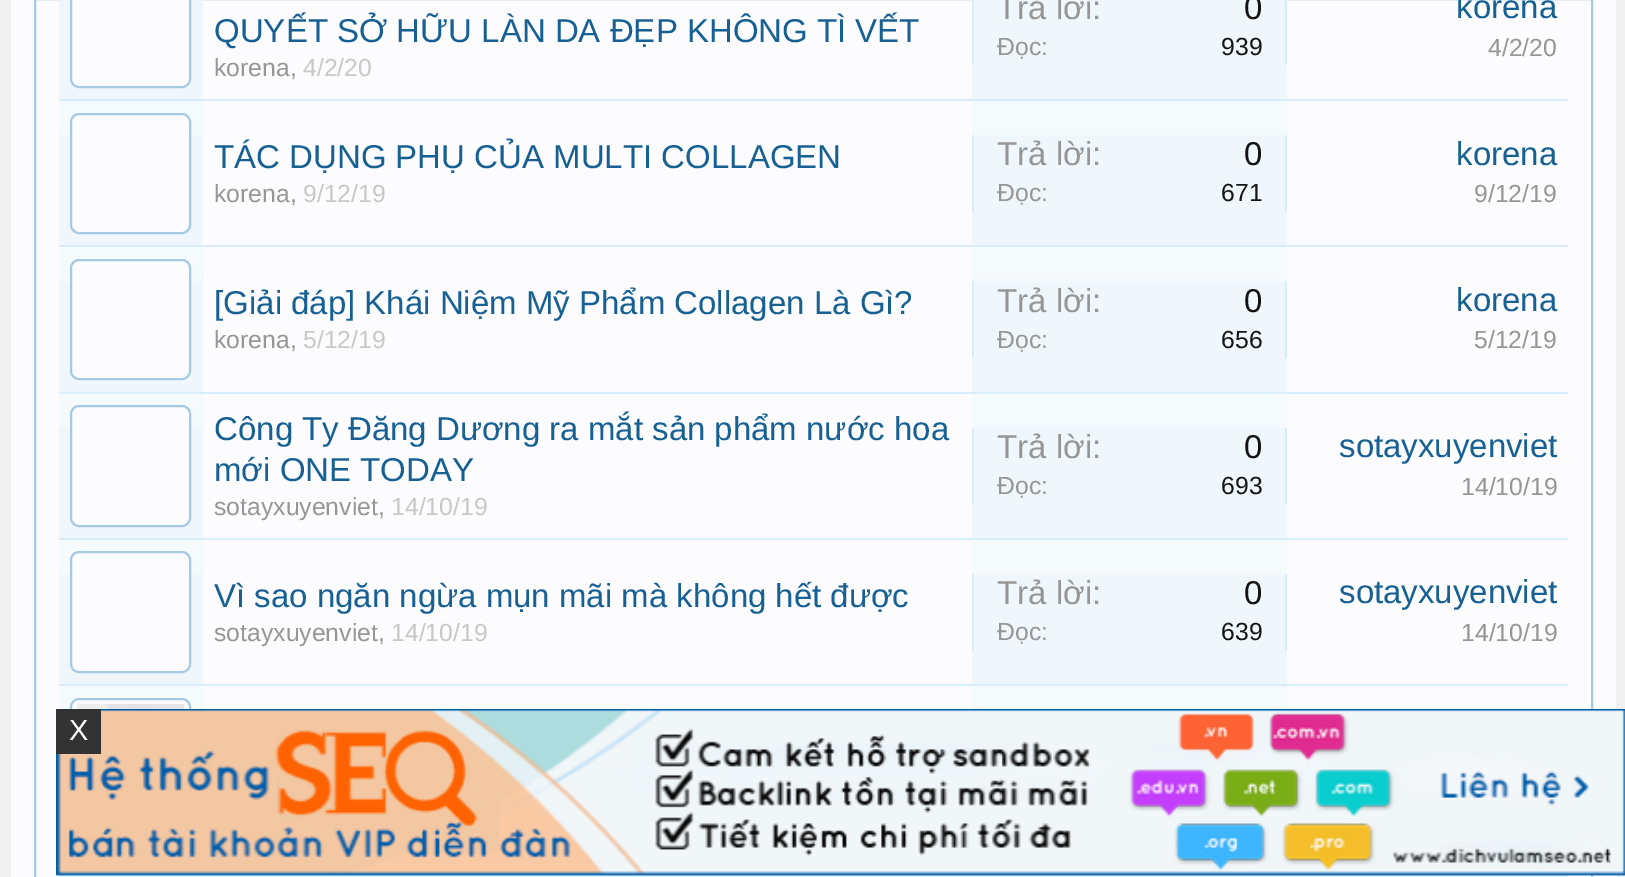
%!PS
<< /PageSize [1625 877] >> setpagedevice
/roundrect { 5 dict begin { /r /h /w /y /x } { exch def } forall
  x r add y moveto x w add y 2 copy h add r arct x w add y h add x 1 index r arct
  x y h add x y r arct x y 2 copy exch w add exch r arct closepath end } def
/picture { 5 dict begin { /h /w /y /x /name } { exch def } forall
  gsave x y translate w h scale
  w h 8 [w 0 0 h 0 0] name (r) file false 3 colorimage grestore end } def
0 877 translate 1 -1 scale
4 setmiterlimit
0.941 setgray
0 0 1625 877 rectfill
0.988 0.988 1 setrgbcolor
11 0 1605 877 rectfill
0.647 0.792 0.894 setrgbcolor
2 setlinewidth
35 -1 1557 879 rectstroke
0.843 0.929 0.988 setrgbcolor
59 99 1509 2 rectfill
0.941 0.969 0.988 setrgbcolor
59 0 144 99 rectfill
0.988 0.988 1 setrgbcolor
71 -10 119 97 8 roundrect gsave fill grestore
0.647 0.792 0.894 setrgbcolor
stroke
/LiberationSans-Regular [33 0 0 -33 0 0] selectfont
0.09 0.376 0.576 setrgbcolor
214 42 moveto (QUYẾT SỞ HỮU LÀN DA ĐẸP KHÔNG TÌ VẾT) show
/LiberationSans-Regular [24.75 0 0 -24.75 0 0] selectfont
0.588 setgray
214 76 moveto (korena,) show
0.784 setgray
303 76 moveto (4/2/20) show
0.941 0.969 0.988 setrgbcolor
972 0 315 99 rectfill
0.843 0.929 0.988 setrgbcolor
1285 0 2 65 rectfill
972 0 2 65 rectfill
/LiberationSans-Regular [33 0 0 -33 0 0] selectfont
0.588 setgray
997 19 moveto (Trả lời:) show
0.078 setgray
1244 19 moveto (0) show
/LiberationSans-Regular [24.75 0 0 -24.75 0 0] selectfont
0.588 setgray
997 55 moveto (Đọc:) show
0.078 setgray
1221 55 moveto (939) show
/LiberationSans-Regular [33 0 0 -33 0 0] selectfont
0.09 0.376 0.576 setrgbcolor
1456 18 moveto (korena) show
/LiberationSans-Regular [24.75 0 0 -24.75 0 0] selectfont
0.588 setgray
1488 56 moveto (4/2/20) show
0.843 0.929 0.988 setrgbcolor
59 245 1509 2 rectfill
0.941 0.969 0.988 setrgbcolor
59 101 144 144 rectfill
(img1.rgb) 59 101 143 35 picture
0.988 0.988 1 setrgbcolor
71 114 119 119 8 roundrect gsave fill grestore
0.647 0.792 0.894 setrgbcolor
stroke
/LiberationSans-Regular [33 0 0 -33 0 0] selectfont
0.09 0.376 0.576 setrgbcolor
214 168 moveto (TÁC DỤNG PHỤ CỦA MULTI COLLAGEN) show
/LiberationSans-Regular [24.75 0 0 -24.75 0 0] selectfont
0.588 setgray
214 202 moveto (korena,) show
0.784 setgray
303 202 moveto (9/12/19) show
0.941 0.969 0.988 setrgbcolor
972 101 315 144 rectfill
(img2.rgb) 972 101 315 35 picture
0.843 0.929 0.988 setrgbcolor
1285 135 2 77 rectfill
972 135 2 77 rectfill
/LiberationSans-Regular [33 0 0 -33 0 0] selectfont
0.588 setgray
997 165 moveto (Trả lời:) show
0.078 setgray
1244 165 moveto (0) show
/LiberationSans-Regular [24.75 0 0 -24.75 0 0] selectfont
0.588 setgray
997 201 moveto (Đọc:) show
0.078 setgray
1221 201 moveto (671) show
/LiberationSans-Regular [33 0 0 -33 0 0] selectfont
0.09 0.376 0.576 setrgbcolor
1456 165 moveto (korena) show
/LiberationSans-Regular [24.75 0 0 -24.75 0 0] selectfont
0.588 setgray
1474 202 moveto (9/12/19) show
0.843 0.929 0.988 setrgbcolor
59 392 1509 2 rectfill
0.941 0.969 0.988 setrgbcolor
59 248 144 144 rectfill
(img3.rgb) 59 248 143 34 picture
0.988 0.988 1 setrgbcolor
71 260 119 119 8 roundrect gsave fill grestore
0.647 0.792 0.894 setrgbcolor
stroke
/LiberationSans-Regular [33 0 0 -33 0 0] selectfont
0.09 0.376 0.576 setrgbcolor
214 314 moveto ([Giải đáp] Khái Niệm Mỹ Phẩm Collagen Là Gì?) show
/LiberationSans-Regular [24.75 0 0 -24.75 0 0] selectfont
0.588 setgray
214 348 moveto (korena,) show
0.784 setgray
303 348 moveto (5/12/19) show
0.941 0.969 0.988 setrgbcolor
972 248 315 144 rectfill
(img4.rgb) 972 248 315 34 picture
0.843 0.929 0.988 setrgbcolor
1285 281 2 77 rectfill
972 281 2 77 rectfill
/LiberationSans-Regular [33 0 0 -33 0 0] selectfont
0.588 setgray
997 312 moveto (Trả lời:) show
0.078 setgray
1244 312 moveto (0) show
/LiberationSans-Regular [24.75 0 0 -24.75 0 0] selectfont
0.588 setgray
997 348 moveto (Đọc:) show
0.078 setgray
1221 348 moveto (656) show
/LiberationSans-Regular [33 0 0 -33 0 0] selectfont
0.09 0.376 0.576 setrgbcolor
1456 311 moveto (korena) show
/LiberationSans-Regular [24.75 0 0 -24.75 0 0] selectfont
0.588 setgray
1474 348 moveto (5/12/19) show
0.843 0.929 0.988 setrgbcolor
59 538 1509 2 rectfill
0.941 0.969 0.988 setrgbcolor
59 394 144 144 rectfill
(img5.rgb) 59 393 143 35 picture
0.988 0.988 1 setrgbcolor
71 406 119 120 8 roundrect gsave fill grestore
0.647 0.792 0.894 setrgbcolor
stroke
/LiberationSans-Regular [33 0 0 -33 0 0] selectfont
0.09 0.376 0.576 setrgbcolor
214 440 moveto (Công Ty Đăng Dương ra mắt sản phẩm nước hoa) show
214 481 moveto (mới ONE TODAY) show
/LiberationSans-Regular [24.75 0 0 -24.75 0 0] selectfont
0.588 setgray
214 515 moveto (sotayxuyenviet,) show
0.784 setgray
391 515 moveto (14/10/19) show
0.941 0.969 0.988 setrgbcolor
972 394 315 144 rectfill
(img6.rgb) 972 393 315 35 picture
0.843 0.929 0.988 setrgbcolor
1285 428 2 76 rectfill
972 428 2 76 rectfill
/LiberationSans-Regular [33 0 0 -33 0 0] selectfont
0.588 setgray
997 458 moveto (Trả lời:) show
0.078 setgray
1244 458 moveto (0) show
/LiberationSans-Regular [24.75 0 0 -24.75 0 0] selectfont
0.588 setgray
997 494 moveto (Đọc:) show
0.078 setgray
1221 494 moveto (693) show
/LiberationSans-Regular [33 0 0 -33 0 0] selectfont
0.09 0.376 0.576 setrgbcolor
1339 457 moveto (sotayxuyenviet) show
/LiberationSans-Regular [24.75 0 0 -24.75 0 0] selectfont
0.588 setgray
1461 495 moveto (14/10/19) show
0.843 0.929 0.988 setrgbcolor
59 684 1509 2 rectfill
0.941 0.969 0.988 setrgbcolor
59 540 144 144 rectfill
(img7.rgb) 59 540 143 35 picture
0.988 0.988 1 setrgbcolor
71 552 119 120 8 roundrect gsave fill grestore
0.647 0.792 0.894 setrgbcolor
stroke
/LiberationSans-Regular [33 0 0 -33 0 0] selectfont
0.09 0.376 0.576 setrgbcolor
214 607 moveto (Vì sao ngăn ngừa mụn mãi mà không hết được) show
/LiberationSans-Regular [24.75 0 0 -24.75 0 0] selectfont
0.588 setgray
214 641 moveto (sotayxuyenviet,) show
0.784 setgray
391 641 moveto (14/10/19) show
0.941 0.969 0.988 setrgbcolor
972 540 315 144 rectfill
(img8.rgb) 972 540 315 35 picture
0.843 0.929 0.988 setrgbcolor
1285 574 2 76 rectfill
972 574 2 76 rectfill
/LiberationSans-Regular [33 0 0 -33 0 0] selectfont
0.588 setgray
997 604 moveto (Trả lời:) show
0.078 setgray
1244 604 moveto (0) show
/LiberationSans-Regular [24.75 0 0 -24.75 0 0] selectfont
0.588 setgray
997 640 moveto (Đọc:) show
0.078 setgray
1221 640 moveto (639) show
/LiberationSans-Regular [33 0 0 -33 0 0] selectfont
0.09 0.376 0.576 setrgbcolor
1339 603 moveto (sotayxuyenviet) show
/LiberationSans-Regular [24.75 0 0 -24.75 0 0] selectfont
0.588 setgray
1461 641 moveto (14/10/19) show
0.941 0.969 0.988 setrgbcolor
59 686 144 23 rectfill
(img9.rgb) 59 686 143 23 picture
0.988 0.988 1 setrgbcolor
71 699 119 119 8 roundrect gsave fill grestore
0.647 0.792 0.894 setrgbcolor
stroke
(img10.rgb) 76 704 109 5 picture
0.941 0.969 0.988 setrgbcolor
972 686 315 23 rectfill
(img11.rgb) 972 686 315 23 picture
0.843 0.929 0.988 setrgbcolor
59 874 1509 3 rectfill
(img12.rgb) 59 874 1509 3 picture
(img13.rgb) 56 709 1569 167 picture
0.2 setgray
56 709 45 45 rectfill
/LiberationSans-Regular [29 0 0 -29 0 0] selectfont
1 setgray
69 740 moveto (X) show
showpage
